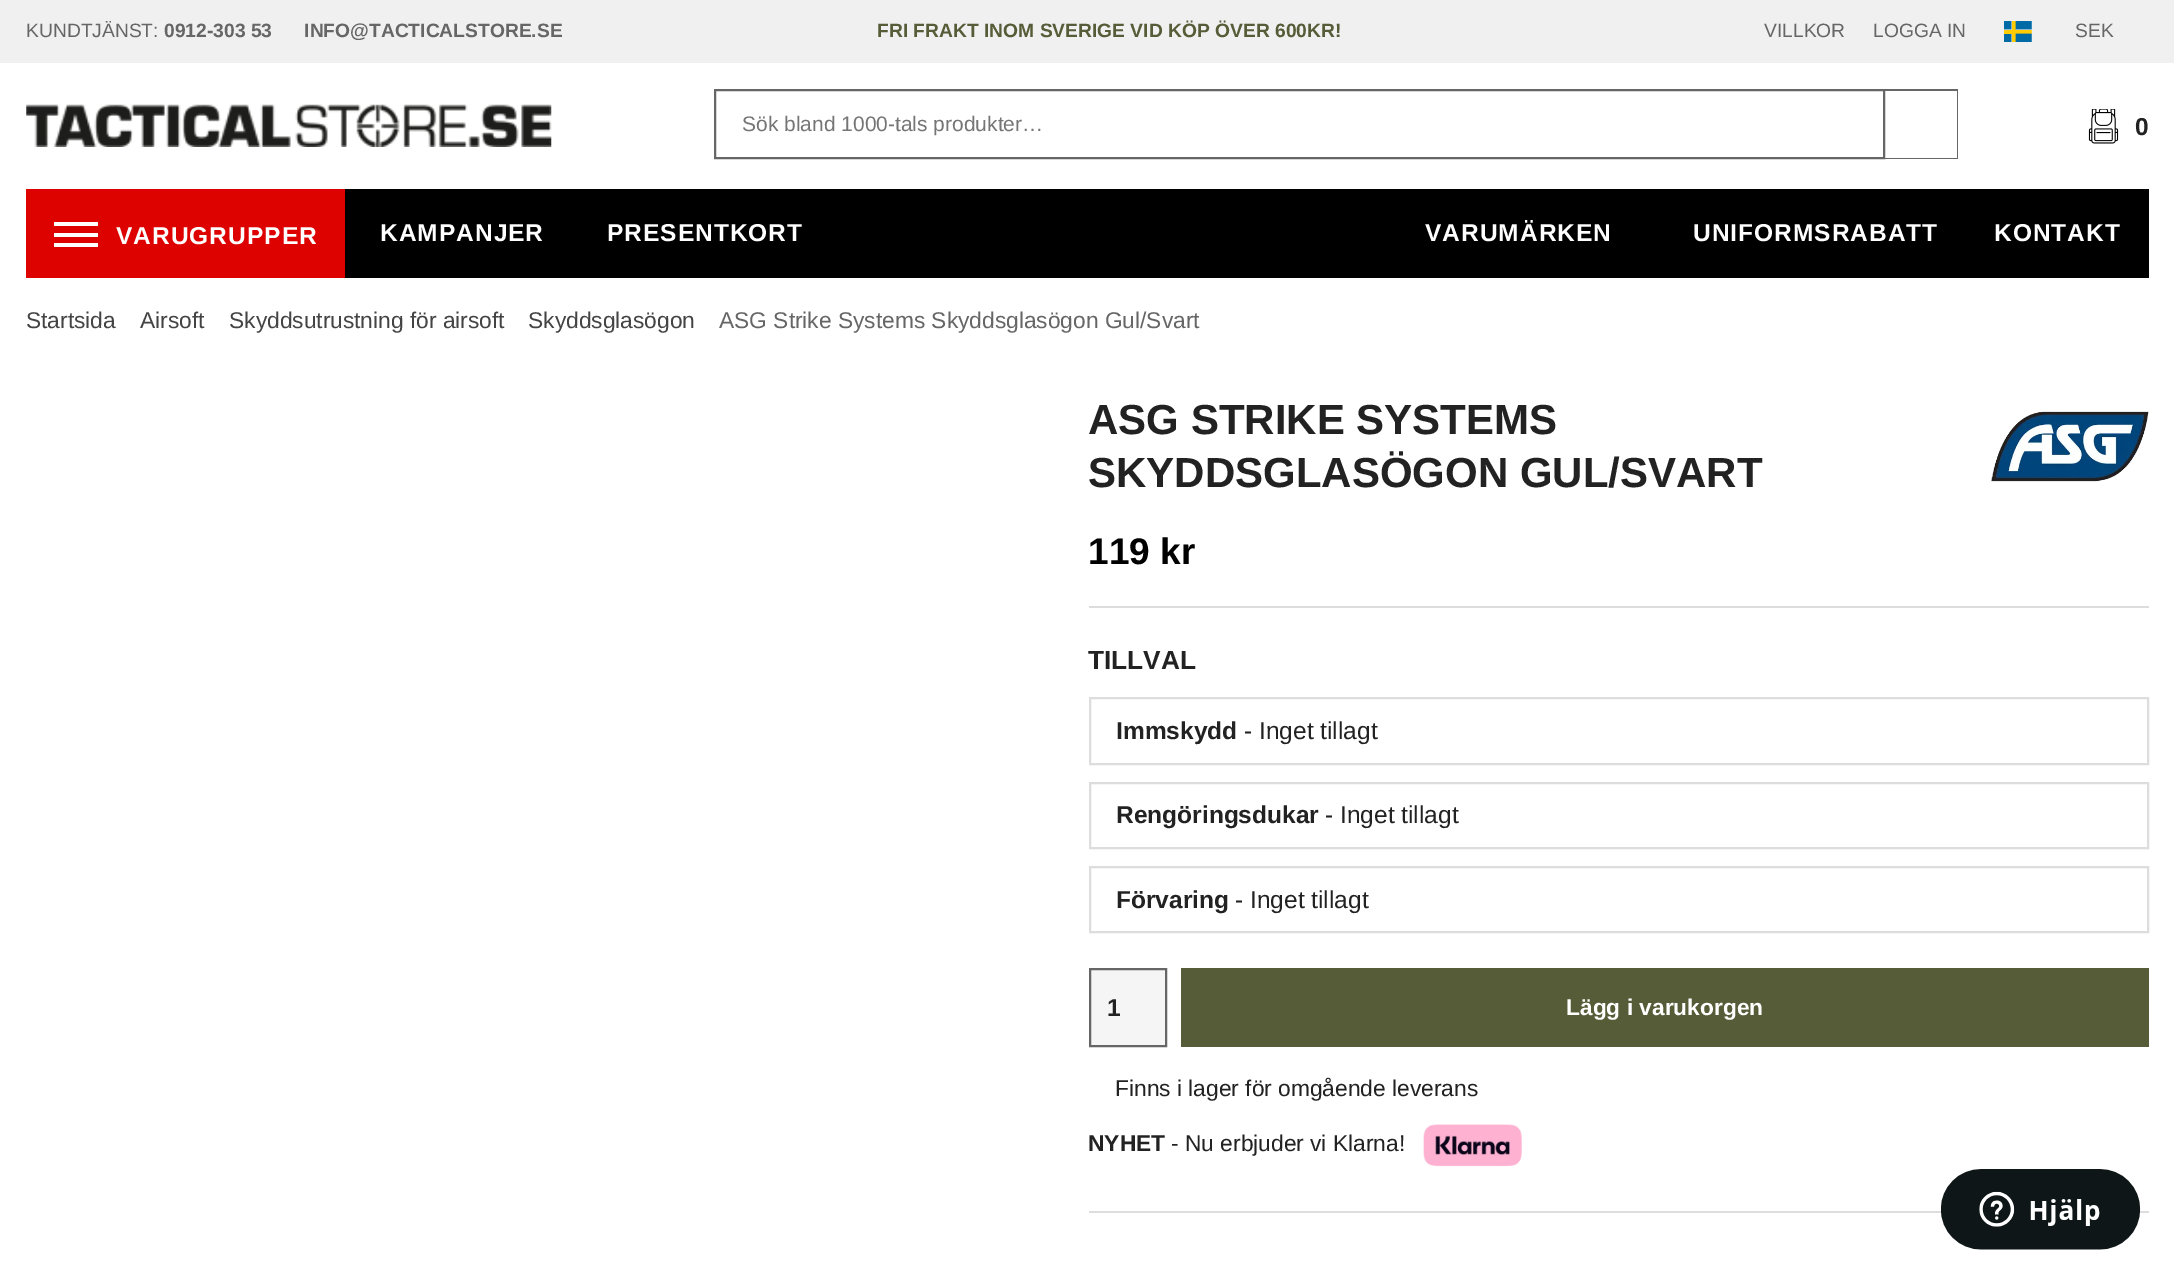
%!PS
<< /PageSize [2174 1273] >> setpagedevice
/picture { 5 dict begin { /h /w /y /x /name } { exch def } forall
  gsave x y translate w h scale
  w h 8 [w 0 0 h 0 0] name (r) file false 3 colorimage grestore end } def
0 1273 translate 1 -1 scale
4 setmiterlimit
1 setgray
0 0 2174 1273 rectfill
0.941 setgray
0 0 2174 63 rectfill
/LiberationSans-Regular [19.25 0 0 -19.25 0 0] selectfont
0.4 setgray
26 37 moveto (KUNDTJÄNST:) show
/LiberationSans-Bold [19.25 0 0 -19.25 0 0] selectfont
164 37 moveto (0912-303 53      INFO@TACTICALSTORE.SE) show
0.337 0.361 0.22 setrgbcolor
877 37 moveto (FRI FRAKT INOM SVERIGE VID KÖP ÖVER 600KR!) show
/LiberationSans-Regular [19.25 0 0 -19.25 0 0] selectfont
0.4 setgray
1764 37 moveto (VILLKOR) show
1873 37 moveto (LOGGA IN) show
(img1.rgb) 2004 21 28 21 picture
2075 37 moveto (SEK) show
(img2.rgb) 26 104 526 43 picture
2 setlinewidth
715 90 1169 68 rectstroke
/LiberationSans-Regular [21 0 0 -21 0 0] selectfont
0.459 setgray
742 131 moveto (Sök bland 1000-tals produkter…) show
0.4 setgray
1885 89 73 2 rectfill
1957 89 1 70 rectfill
1885 158 73 1 rectfill
(img3.rgb) 2088 109 31 35 picture
/LiberationSans-Bold [24.5 0 0 -24.5 0 0] selectfont
0.133 setgray
2135 135 moveto (0) show
0 setgray
345 189 1804 89 rectfill
0.867 0.008 0 setrgbcolor
26 189 319 89 rectfill
1 setgray
54 222 44 4 rectfill
54 233 44 4 rectfill
54 243 44 4 rectfill
116 244 moveto 1 0 (VARUGRUPPER) ashow
380 241 moveto 1 0 (KAMPANJER) ashow
607 241 moveto 1 0 (PRESENTKORT) ashow
1425 241 moveto 1 0 (VARUMÄRKEN) ashow
1693 241 moveto 1 0 (UNIFORMSRABATT) ashow
1994 241 moveto 1 0 (KONTAKT) ashow
/LiberationSans-Regular [22.75 0 0 -22.75 0 0] selectfont
0.267 setgray
26 328 moveto (Startsida) show
140 328 moveto (Airsoft) show
229 328 moveto (Skyddsutrustning för airsoft) show
528 328 moveto (Skyddsglasögon) show
0.4 setgray
719 328 moveto (ASG Strike Systems Skyddsglasögon Gul/Svart) show
/LiberationSans-Bold [42 0 0 -42 0 0] selectfont
0.133 setgray
1088 434 moveto (ASG STRIKE SYSTEMS) show
1088 487 moveto (SKYDDSGLASÖGON GUL/SVART) show
(img4.rgb) 1991 411 158 71 picture
/LiberationSans-Bold [37 0 0 -37 0 0] selectfont
0 setgray
1088 564 moveto (119 kr) show
0.867 setgray
1089 606 1060 2 rectfill
/LiberationSans-Bold [26.25 0 0 -26.25 0 0] selectfont
0.133 setgray
1088 669 moveto (TILLVAL) show
0.867 setgray
1090 698 1058 66 rectstroke
/LiberationSans-Bold [24.5 0 0 -24.5 0 0] selectfont
0.133 setgray
1116 739 moveto (Immskydd) show
/LiberationSans-Regular [24.5 0 0 -24.5 0 0] selectfont
1244 739 moveto (- Inget tillagt) show
0.867 setgray
1090 783 1058 65 rectstroke
/LiberationSans-Bold [24.5 0 0 -24.5 0 0] selectfont
0.133 setgray
1116 823 moveto (Rengöringsdukar) show
/LiberationSans-Regular [24.5 0 0 -24.5 0 0] selectfont
1325 823 moveto (- Inget tillagt) show
0.867 setgray
1090 867 1058 65 rectstroke
/LiberationSans-Bold [24.5 0 0 -24.5 0 0] selectfont
0.133 setgray
1116 908 moveto (Förvaring) show
/LiberationSans-Regular [24.5 0 0 -24.5 0 0] selectfont
1235 908 moveto (- Inget tillagt) show
0.961 setgray
newpath 1090 969 moveto 1166 969 lineto 1166 1046 lineto 1090 1046 lineto closepath gsave fill grestore
0.4 setgray
stroke
/LiberationSans-Bold [24.5 0 0 -24.5 0 0] selectfont
0.133 setgray
1107 1016 moveto (1) show
0.337 0.361 0.22 setrgbcolor
1181 968 968 79 rectfill
/LiberationSans-Bold [22.75 0 0 -22.75 0 0] selectfont
1 setgray
1566 1015 moveto (Lägg i varukorgen) show
0.867 setgray
1089 1211 1060 2 rectfill
/LiberationSans-Regular [22.75 0 0 -22.75 0 0] selectfont
0.133 setgray
1115 1096 moveto (Finns i lager för omgående leverans) show
/LiberationSans-Bold [22.75 0 0 -22.75 0 0] selectfont
1088 1151 moveto (NYHET) show
/LiberationSans-Regular [22.75 0 0 -22.75 0 0] selectfont
1171 1151 moveto (- Nu erbjuder vi Klarna!) show
(img5.rgb) 1423 1124 99 43 picture
(img6.rgb) 1941 1169 200 81 picture
showpage
